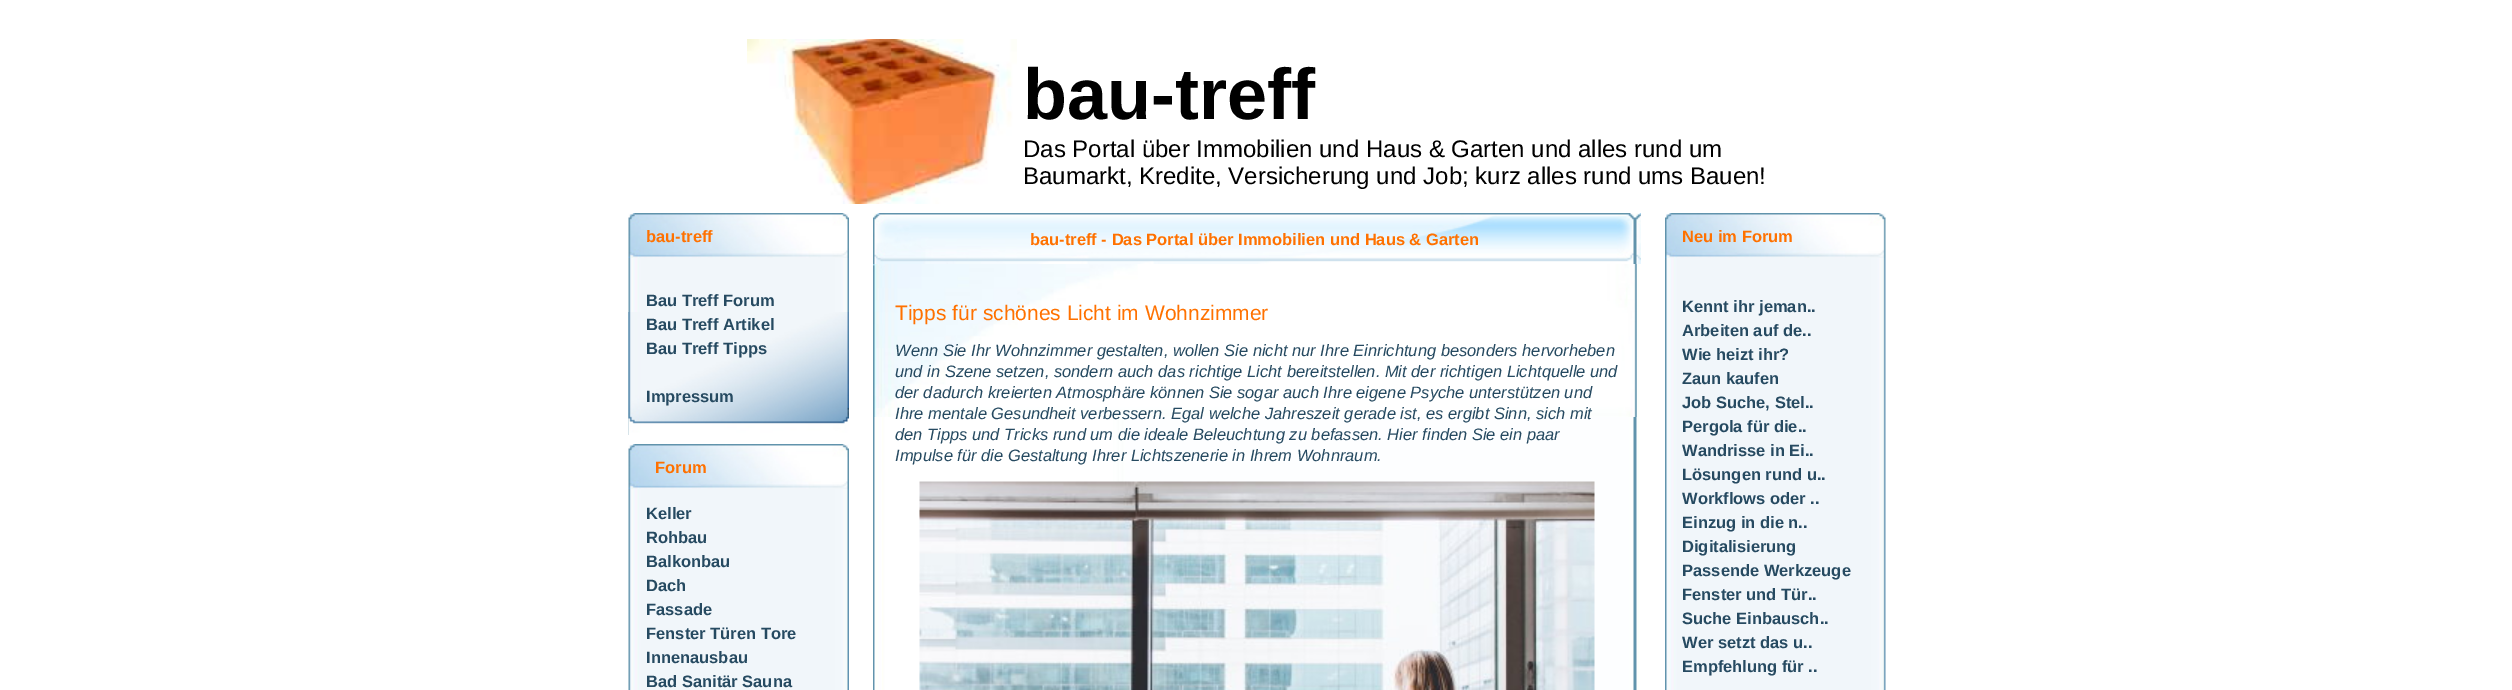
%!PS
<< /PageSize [2512 690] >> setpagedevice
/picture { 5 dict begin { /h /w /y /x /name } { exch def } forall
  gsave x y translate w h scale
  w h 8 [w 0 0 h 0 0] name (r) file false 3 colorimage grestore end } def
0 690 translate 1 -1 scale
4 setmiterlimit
1 setgray
0 0 2512 690 rectfill
(img1.rgb) 747 39 270 165 picture
/LiberationSans-Bold [72 0 0 -72 0 0] selectfont
0 setgray
1023 119 moveto (bau-treff) show
/LiberationSans-Regular [24 0 0 -24 0 0] selectfont
1023 157 moveto (Das Portal über Immobilien und Haus & Garten und alles rund um) show
1023 184 moveto (Baumarkt, Kredite, Versicherung und Job; kurz alles rund ums Bauen!) show
(img2.rgb) 628 213 221 45 picture
/LiberationSans-Bold [16.5 0 0 -16.5 0 0] selectfont
1 0.443 0 setrgbcolor
646 242 moveto (bau-treff) show
(img3.rgb) 628 258 221 177 picture
(img4.rgb) 628 312 221 123 picture
0.149 0.29 0.38 setrgbcolor
646 306 moveto (Bau Treff Forum) show
646 330 moveto (Bau Treff Artikel) show
646 354 moveto (Bau Treff Tipps) show
646 402 moveto (Impressum) show
(img2.rgb) 628 444 221 45 picture
1 0.443 0 setrgbcolor
655 473 moveto (Forum) show
(img5.rgb) 628 489 221 201 picture
0.149 0.29 0.38 setrgbcolor
646 519 moveto (Keller) show
646 543 moveto (Rohbau) show
646 567 moveto (Balkonbau) show
646 591 moveto (Dach) show
646 615 moveto (Fassade) show
646 639 moveto (Fenster Türen Tore) show
646 663 moveto (Innenausbau) show
646 687 moveto (Bad Sanitär Sauna) show
(img6.rgb) 873 213 768 51 picture
1 0.443 0 setrgbcolor
1030 245 moveto (bau-treff - Das Portal über Immobilien und Haus & Garten) show
(img7.rgb) 873 264 766 426 picture
(img8.rgb) 873 264 764 153 picture
/LiberationSans-Regular [21 0 0 -21 0 0] selectfont
895 320 moveto (Tipps für schönes Licht im Wohnzimmer) show
/LiberationSans-Italic [16.5 0 0 -16.5 0 0] selectfont
0.149 0.29 0.38 setrgbcolor
895 356 moveto (Wenn Sie Ihr Wohnzimmer gestalten, wollen Sie nicht nur Ihre Einrichtung besonders hervorheben) show
895 377 moveto (und in Szene setzen, sondern auch das richtige Licht bereitstellen. Mit der richtigen Lichtquelle und) show
895 398 moveto (der dadurch kreierten Atmosphäre können Sie sogar auch Ihre eigene Psyche unterstützen und) show
895 419 moveto (Ihre mentale Gesundheit verbessern. Egal welche Jahreszeit gerade ist, es ergibt Sinn, sich mit) show
895 440 moveto (den Tipps und Tricks rund um die ideale Beleuchtung zu befassen. Hier finden Sie ein paar) show
895 461 moveto (Impulse für die Gestaltung Ihrer Lichtszenerie in Ihrem Wohnraum.) show
(img9.rgb) 919 481 676 209 picture
(img10.rgb) 1665 213 221 45 picture
/LiberationSans-Bold [16.5 0 0 -16.5 0 0] selectfont
1 0.443 0 setrgbcolor
1682 242 moveto (Neu im Forum) show
(img11.rgb) 1665 258 221 432 picture
0.149 0.29 0.38 setrgbcolor
1682 312 moveto (Kennt ihr jeman..) show
1682 336 moveto (Arbeiten auf de..) show
1682 360 moveto (Wie heizt ihr?) show
1682 384 moveto (Zaun kaufen) show
1682 408 moveto (Job Suche, Stel..) show
1682 432 moveto (Pergola für die..) show
1682 456 moveto (Wandrisse in Ei..) show
1682 480 moveto (Lösungen rund u..) show
1682 504 moveto (Workflows oder ..) show
1682 528 moveto (Einzug in die n..) show
1682 552 moveto (Digitalisierung) show
1682 576 moveto (Passende Werkzeuge) show
1682 600 moveto (Fenster und Tür..) show
1682 624 moveto (Suche Einbausch..) show
1682 648 moveto (Wer setzt das u..) show
1682 672 moveto (Empfehlung für ..) show
showpage
